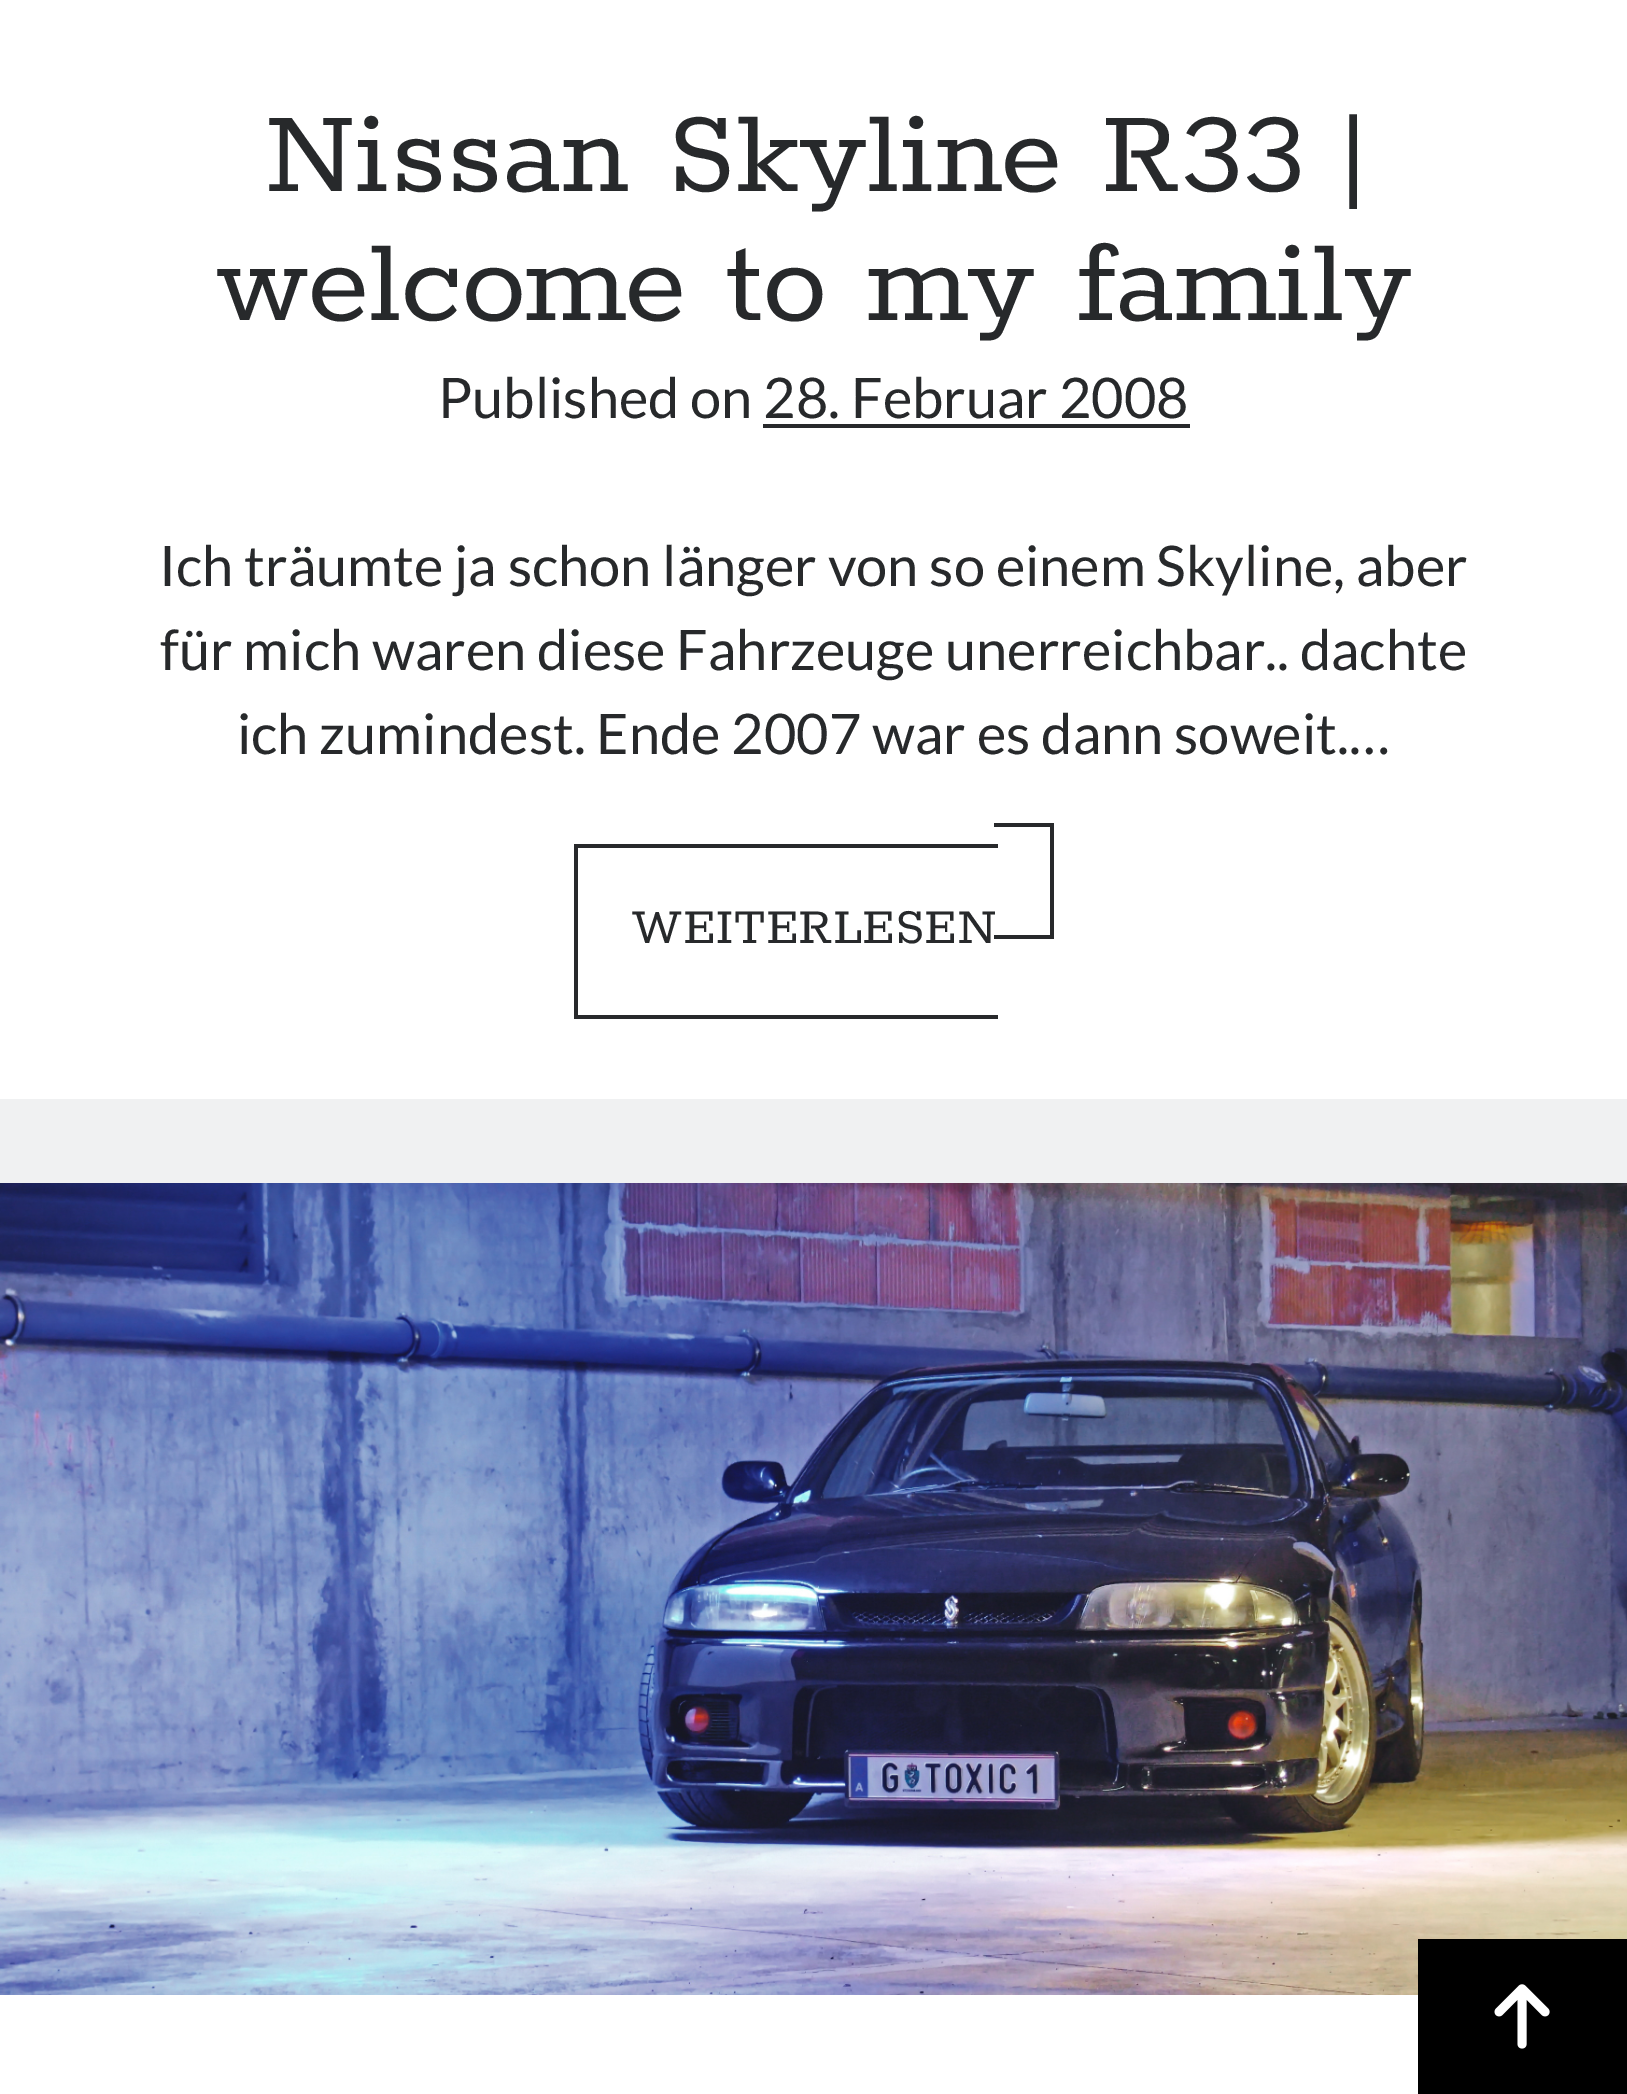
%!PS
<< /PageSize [1627 2094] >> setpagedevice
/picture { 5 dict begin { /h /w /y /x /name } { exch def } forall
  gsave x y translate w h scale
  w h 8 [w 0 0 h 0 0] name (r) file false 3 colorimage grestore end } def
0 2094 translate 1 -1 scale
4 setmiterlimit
0.941 0.945 0.949 setrgbcolor
0 0 1627 2094 rectfill
1 setgray
0 0 1627 1099 rectfill
/Rokkitt-Regular [129.5 0 0 -129.5 0 0] selectfont
0.153 0.161 0.169 setrgbcolor
264 191 moveto (Nissan Skyline R33 |) show
216 320 moveto (welcome to my family) show
/Lato-Regular [56 0 0 -56 0 0] selectfont
438 418 moveto (Published on 28. Februar 2008) show
763 424 427 4 rectfill
159 586 moveto (Ich träumte ja schon länger von so einem Skyline, aber) show
160 670 moveto (für mich waren diese Fahrzeuge unerreichbar.. dachte) show
237 754 moveto (ich zumindest. Ende 2007 war es dann soweit.…) show
994 823 60 4 rectfill
1050 823 4 115 rectfill
994 935 60 4 rectfill
/Rokkitt-Regular [56 0 0 -56 0 0] selectfont
631 943 moveto (WEITERLESEN) show
574 844 424 4 rectfill
574 1015 424 4 rectfill
574 844 4 175 rectfill
(img1.rgb) 0 1183 1627 812 picture
1 setgray
0 1995 1418 99 rectfill
0 setgray
1418 1939 209 155 rectfill
(img2.rgb) 1494 1984 56 65 picture
showpage
